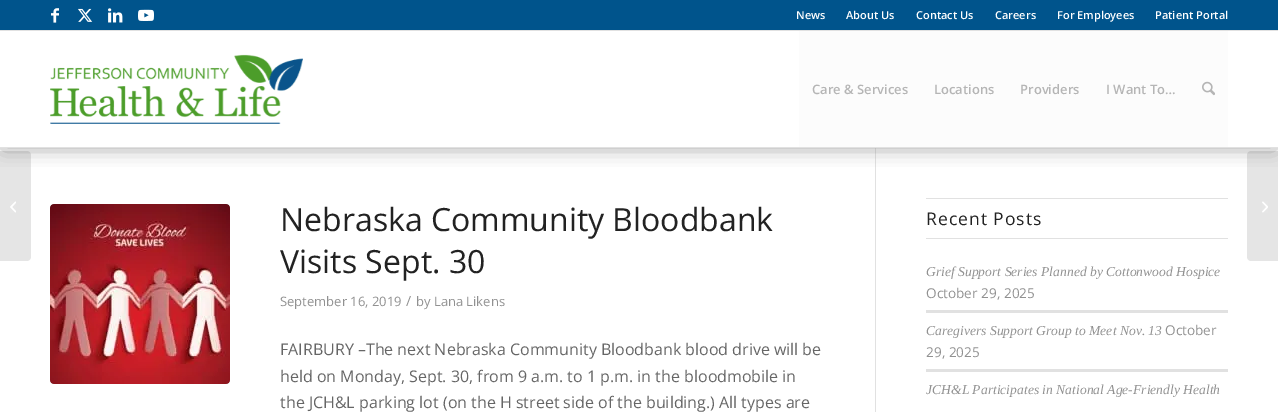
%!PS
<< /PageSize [1278 412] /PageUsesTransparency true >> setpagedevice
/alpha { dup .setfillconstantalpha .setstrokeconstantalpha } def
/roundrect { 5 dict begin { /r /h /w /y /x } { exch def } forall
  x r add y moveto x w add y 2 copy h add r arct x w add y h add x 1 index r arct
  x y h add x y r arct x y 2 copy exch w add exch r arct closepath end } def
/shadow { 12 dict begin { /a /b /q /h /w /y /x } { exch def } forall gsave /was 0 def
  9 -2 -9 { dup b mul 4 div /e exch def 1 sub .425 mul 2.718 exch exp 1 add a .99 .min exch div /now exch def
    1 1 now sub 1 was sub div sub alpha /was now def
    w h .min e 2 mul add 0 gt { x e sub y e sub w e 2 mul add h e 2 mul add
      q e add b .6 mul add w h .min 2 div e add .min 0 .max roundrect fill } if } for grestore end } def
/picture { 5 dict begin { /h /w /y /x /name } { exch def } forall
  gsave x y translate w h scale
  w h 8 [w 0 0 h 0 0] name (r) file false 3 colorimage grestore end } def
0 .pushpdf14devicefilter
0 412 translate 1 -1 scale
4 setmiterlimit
1 setgray
0 0 1278 412 rectfill
0.882 setgray
875 148 1 264 rectfill
gsave
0 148 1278 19 rectclip
0.533 setgray
4 6 1270 140 0 10 1 shadow
grestore
0 0.329 0.549 setrgbcolor
0 0 1278 30 rectfill
0.882 setgray
0 30 1278 1 rectfill
(img1.rgb) 51 8 8 15 picture
(img2.rgb) 78 8 15 14 picture
(img3.rgb) 108 8 15 15 picture
(img4.rgb) 138 9 16 12 picture
/OpenSans-SemiBold [11 0 0 -11 0 0] selectfont
1 setgray
796 19 moveto (News) show
846 19 moveto (About Us) show
916 19 moveto (Contact Us) show
995 19 moveto (Careers) show
1057 19 moveto (For Employees) show
1155 19 moveto (Patient Portal) show
0.882 setgray
0 147 1278 1 rectfill
(img5.rgb) 50 54 253 70 picture
0.988 setgray
799 31 429 116 rectfill
/OpenSans-SemiBold [13 0 0 -13 0 0] selectfont
0.71 setgray
812 94 moveto (Care & Services) show
934 94 moveto (Locations) show
1020 94 moveto (Providers) show
1106 94 moveto (I Want To…) show
(img6.rgb) 1202 81 13 15 picture
0.1 alpha
0 setgray
newpath 0 151 moveto 27 151 lineto 29 151 31 153 31 155 curveto 31 257 lineto 31 259 29 261 27 261 curveto 0 261 lineto closepath fill
1 alpha
(img7.rgb) 10 201 6 12 picture
(img8.rgb) 50 204 180 180 picture
/OpenSans-Regular [32 0 0 -32 0 0] selectfont
0.133 setgray
280 231 moveto (Nebraska Community Bloodbank) show
280 273 moveto (Visits Sept. 30) show
/OpenSans-Regular [13 0 0 -13 0 0] selectfont
0.569 setgray
280 306 moveto (September 16, 2019) show
/OpenSans-Regular [14 0 0 -14 0 0] selectfont
406 306 moveto (/) show
/OpenSans-Regular [13 0 0 -13 0 0] selectfont
416 306 moveto (by Lana Likens) show
/OpenSans-Regular [16 0 0 -16 0 0] selectfont
0.4 setgray
280 355 moveto (FAIRBURY –The next Nebraska Community Bloodbank blood drive will be) show
280 382 moveto (held on Monday, Sept. 30, from 9 a.m. to 1 p.m. in the bloodmobile in) show
280 408 moveto (the JCH&L parking lot \(on the H street side of the building.\) All types are) show
0.882 setgray
926 198 302 1 rectfill
926 238 302 1 rectfill
/OpenSans-Regular [17.5 0 0 -17.5 0 0] selectfont
0.133 setgray
926 225 moveto 1 0 (Recent Posts) ashow
/LiberationSerif-Italic [13.6 0 0 -13.6 0 0] selectfont
0.569 setgray
926 276 moveto (Grief Support Series Planned by Cottonwood Hospice) show
/OpenSans-Regular [13.6 0 0 -13.6 0 0] selectfont
926 298 moveto (October 29, 2025) show
0.882 setgray
926 310 302 3 rectfill
/LiberationSerif-Italic [13.6 0 0 -13.6 0 0] selectfont
0.569 setgray
926 335 moveto (Caregivers Support Group to Meet Nov. 13) show
/OpenSans-Regular [13.6 0 0 -13.6 0 0] selectfont
1165 335 moveto (October) show
926 357 moveto (29, 2025) show
0.882 setgray
926 369 302 3 rectfill
/LiberationSerif-Italic [13.6 0 0 -13.6 0 0] selectfont
0.569 setgray
926 394 moveto (JCH&L Participates in National Age-Friendly Health) show
0.1 alpha
0 setgray
newpath 1251 151 moveto 1278 151 lineto 1278 261 lineto 1251 261 lineto 1249 261 1247 259 1247 257 curveto 1247 155 lineto 1247 153 1249 151 1251 151 curveto closepath fill
1 alpha
(img9.rgb) 1262 201 6 12 picture
.poppdf14devicefilter showpage
